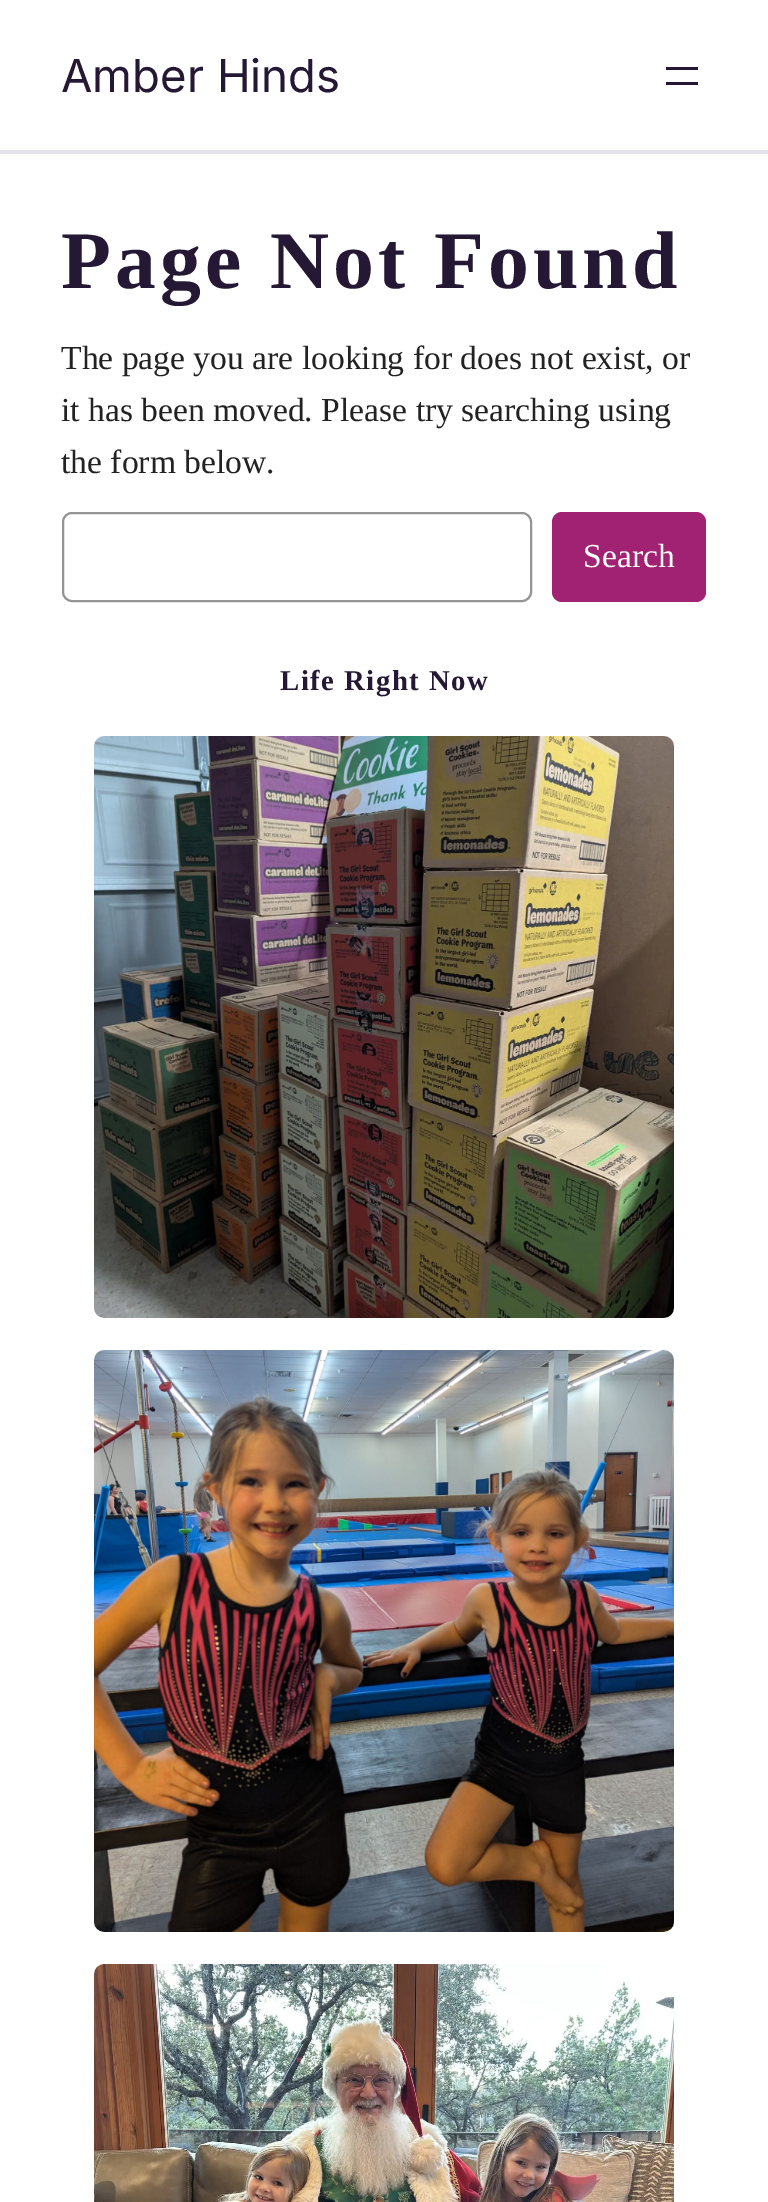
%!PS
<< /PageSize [768 2202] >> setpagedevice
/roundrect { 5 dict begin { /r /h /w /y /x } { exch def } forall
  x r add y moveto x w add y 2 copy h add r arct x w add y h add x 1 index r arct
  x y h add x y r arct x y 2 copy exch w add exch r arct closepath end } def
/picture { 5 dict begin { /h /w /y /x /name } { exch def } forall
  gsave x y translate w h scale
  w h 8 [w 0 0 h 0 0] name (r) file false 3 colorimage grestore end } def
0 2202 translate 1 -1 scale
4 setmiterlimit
1 setgray
0 0 768 2202 rectfill
0.894 0.886 0.918 setrgbcolor
0 150 768 4 rectfill
/Inter-Regular [45.5 0 0 -45.5 0 0] selectfont
0.141 0.094 0.204 setrgbcolor
61 92 moveto (Amber Hinds) show
666 67 32 3 rectfill
666 82 32 3 rectfill
/LiberationSerif-Bold [81.75 0 0 -81.75 0 0] selectfont
61 288 moveto 4.1 0 (Page Not Found) ashow
/LiberationSerif-Regular [33.6 0 0 -33.6 0 0] selectfont
0.133 setgray
61 369 moveto (The page you are looking for does not exist, or) show
61 421 moveto (it has been moved. Please try searching using) show
61 473 moveto (the form below.) show
0.58 setgray
2 setlinewidth
63 513 468 88 9 roundrect stroke
0.631 0.129 0.447 setrgbcolor
552 512 154 90 10 roundrect fill
1 setgray
583 567 moveto (Search) show
/LiberationSerif-Bold [28.75 0 0 -28.75 0 0] selectfont
0.141 0.094 0.204 setrgbcolor
280 690 moveto 1.5 0 (Life Right Now) ashow
(img1.rgb) 94 736 580 582 picture
(img2.rgb) 94 1350 580 582 picture
(img3.rgb) 94 1964 580 238 picture
showpage
